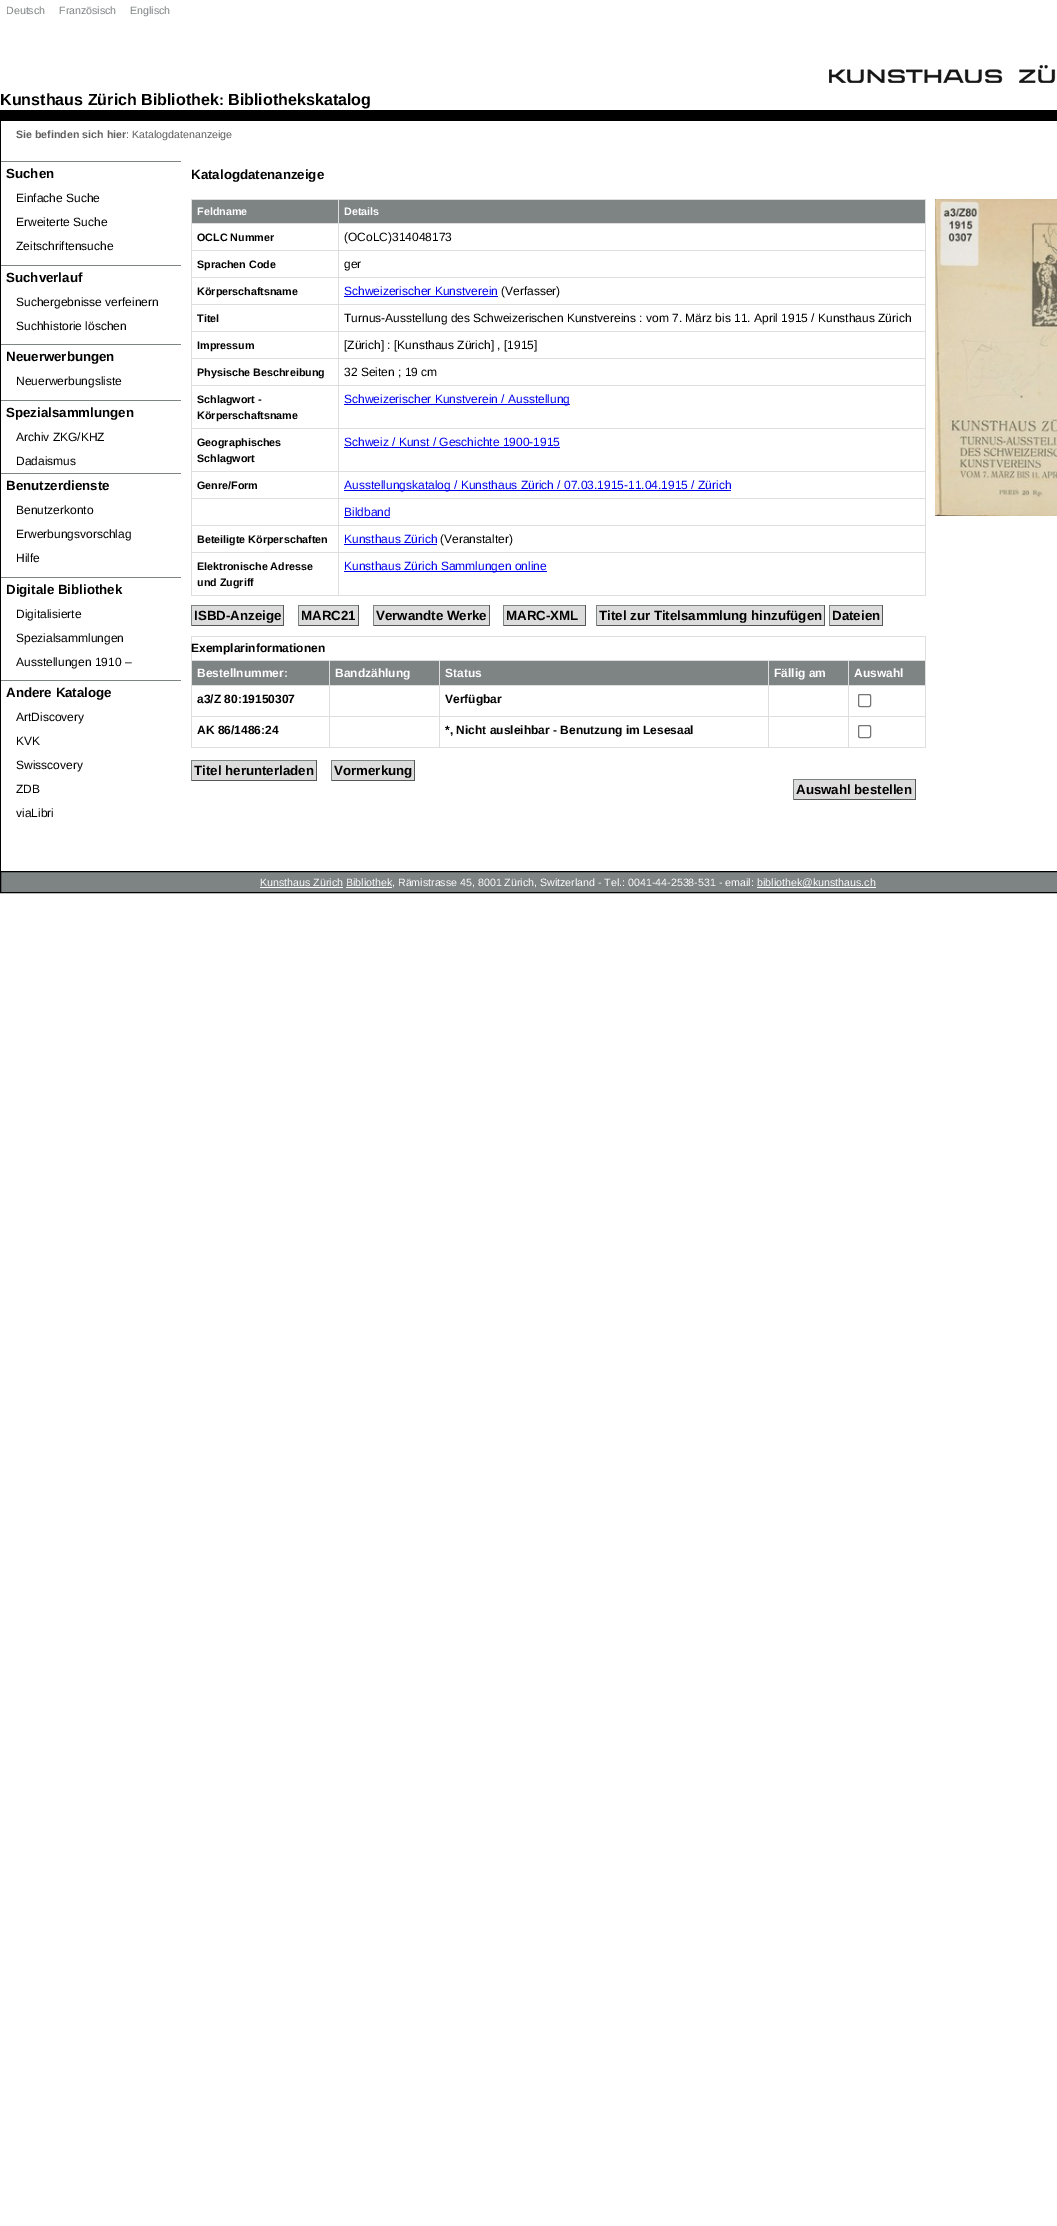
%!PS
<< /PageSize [1057 2226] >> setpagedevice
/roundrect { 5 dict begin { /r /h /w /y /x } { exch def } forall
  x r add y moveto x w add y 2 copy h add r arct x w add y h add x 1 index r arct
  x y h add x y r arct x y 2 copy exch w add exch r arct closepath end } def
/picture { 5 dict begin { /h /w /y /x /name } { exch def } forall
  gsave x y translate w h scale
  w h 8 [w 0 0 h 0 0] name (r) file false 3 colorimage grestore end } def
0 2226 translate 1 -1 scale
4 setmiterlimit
1 setgray
0 0 1057 2226 rectfill
0 setgray
1 110 1056 11 rectfill
0 110 1 761 rectfill
/LiberationSans-Regular [10.65 0 0 -10.65 0 0] selectfont
0.494 0.514 0.518 setrgbcolor
6 14 moveto (Deutsch) show
59 14 moveto (Französisch) show
130 14 moveto (Englisch) show
1 161 180 1 rectfill
/LiberationSans-Bold [13.3 0 0 -13.3 0 0] selectfont
0 setgray
6 178 moveto (Suchen) show
/LiberationSans-Regular [12 0 0 -12 0 0] selectfont
16 202 moveto (Einfache Suche) show
16 226 moveto (Erweiterte Suche) show
16 250 moveto (Zeitschriftensuche) show
0.494 0.514 0.518 setrgbcolor
1 265 180 1 rectfill
/LiberationSans-Bold [13.3 0 0 -13.3 0 0] selectfont
0 setgray
6 282 moveto (Suchverlauf) show
/LiberationSans-Regular [12 0 0 -12 0 0] selectfont
16 306 moveto (Suchergebnisse verfeinern) show
16 330 moveto (Suchhistorie löschen) show
0.494 0.514 0.518 setrgbcolor
1 344 180 1 rectfill
/LiberationSans-Bold [13.3 0 0 -13.3 0 0] selectfont
0 setgray
6 361 moveto (Neuerwerbungen) show
/LiberationSans-Regular [12 0 0 -12 0 0] selectfont
16 385 moveto (Neuerwerbungsliste) show
0.494 0.514 0.518 setrgbcolor
1 400 180 1 rectfill
/LiberationSans-Bold [13.3 0 0 -13.3 0 0] selectfont
0 setgray
6 417 moveto (Spezialsammlungen) show
/LiberationSans-Regular [12 0 0 -12 0 0] selectfont
16 441 moveto (Archiv ZKG/KHZ) show
16 465 moveto (Dadaismus) show
0.494 0.514 0.518 setrgbcolor
1 473 180 1 rectfill
/LiberationSans-Bold [13.3 0 0 -13.3 0 0] selectfont
0 setgray
6 490 moveto (Benutzerdienste) show
/LiberationSans-Regular [12 0 0 -12 0 0] selectfont
16 514 moveto (Benutzerkonto) show
16 538 moveto (Erwerbungsvorschlag) show
16 562 moveto (Hilfe) show
0.494 0.514 0.518 setrgbcolor
1 577 180 1 rectfill
/LiberationSans-Bold [13.3 0 0 -13.3 0 0] selectfont
0 setgray
6 594 moveto (Digitale Bibliothek) show
/LiberationSans-Regular [12 0 0 -12 0 0] selectfont
16 618 moveto (Digitalisierte) show
16 642 moveto (Spezialsammlungen) show
16 666 moveto (Ausstellungen 1910 ‒) show
0.494 0.514 0.518 setrgbcolor
1 680 180 1 rectfill
/LiberationSans-Bold [13.3 0 0 -13.3 0 0] selectfont
0 setgray
6 697 moveto (Andere Kataloge) show
/LiberationSans-Regular [12 0 0 -12 0 0] selectfont
16 721 moveto (ArtDiscovery) show
16 745 moveto (KVK) show
16 769 moveto (Swisscovery) show
16 793 moveto (ZDB) show
16 817 moveto (viaLibri) show
/LiberationSans-Bold [10.65 0 0 -10.65 0 0] selectfont
0.373 setgray
16 138 moveto (Sie befinden sich hier) show
/LiberationSans-Regular [10.65 0 0 -10.65 0 0] selectfont
126 138 moveto (: Katalogdatenanzeige) show
/LiberationSans-Bold [13.3 0 0 -13.3 0 0] selectfont
0 setgray
191 179 moveto (Katalogdatenanzeige) show
0.871 setgray
191 199 735 1 rectfill
925 199 1 397 rectfill
191 595 735 1 rectfill
191 199 1 397 rectfill
0.494 0.514 0.518 setrgbcolor
192 200 146 23 rectfill
/LiberationSans-Bold [10.75 0 0 -10.75 0 0] selectfont
1 setgray
197 215 moveto (Feldname) show
0.494 0.514 0.518 setrgbcolor
339 200 586 23 rectfill
1 setgray
344 215 moveto (Details) show
0.871 setgray
191 223 735 1 rectfill
0 setgray
197 241 moveto (OCLC Nummer) show
/LiberationSans-Regular [12 0 0 -12 0 0] selectfont
344 241 moveto (\(OCoLC\)314048173) show
0.871 setgray
191 250 735 1 rectfill
/LiberationSans-Bold [10.75 0 0 -10.75 0 0] selectfont
0 setgray
197 268 moveto (Sprachen Code) show
/LiberationSans-Regular [12 0 0 -12 0 0] selectfont
344 268 moveto (ger) show
0.871 setgray
191 277 735 1 rectfill
/LiberationSans-Bold [10.75 0 0 -10.75 0 0] selectfont
0 setgray
197 295 moveto (Körperschaftsname) show
/LiberationSans-Regular [12 0 0 -12 0 0] selectfont
0 0 0.933 setrgbcolor
344 295 moveto (Schweizerischer Kunstverein) show
344 296 154 1 rectfill
0 setgray
501 295 moveto (\(Verfasser\)) show
0.871 setgray
191 304 735 1 rectfill
/LiberationSans-Bold [10.75 0 0 -10.75 0 0] selectfont
0 setgray
197 322 moveto (Titel) show
/LiberationSans-Regular [12 0 0 -12 0 0] selectfont
344 322 moveto (Turnus-Ausstellung des Schweizerischen Kunstvereins : vom 7. März bis 11. April 1915 / Kunsthaus Zürich) show
0.871 setgray
191 331 735 1 rectfill
/LiberationSans-Bold [10.75 0 0 -10.75 0 0] selectfont
0 setgray
197 349 moveto (Impressum) show
/LiberationSans-Regular [12 0 0 -12 0 0] selectfont
344 349 moveto ([Zürich] : [Kunsthaus Zürich] , [1915]) show
0.871 setgray
191 358 735 1 rectfill
/LiberationSans-Bold [10.75 0 0 -10.75 0 0] selectfont
0 setgray
197 376 moveto (Physische Beschreibung) show
/LiberationSans-Regular [12 0 0 -12 0 0] selectfont
344 376 moveto (32 Seiten ; 19 cm) show
0.871 setgray
191 385 735 1 rectfill
/LiberationSans-Bold [10.75 0 0 -10.75 0 0] selectfont
0 setgray
197 403 moveto (Schlagwort -) show
197 419 moveto (Körperschaftsname) show
0 0 0.933 setrgbcolor
344 404 226 1 rectfill
/LiberationSans-Regular [12 0 0 -12 0 0] selectfont
344 403 moveto (Schweizerischer Kunstverein / Ausstellung) show
0.871 setgray
191 428 735 1 rectfill
/LiberationSans-Bold [10.75 0 0 -10.75 0 0] selectfont
0 setgray
197 446 moveto (Geographisches) show
197 462 moveto (Schlagwort) show
/LiberationSans-Regular [12 0 0 -12 0 0] selectfont
0 0 0.933 setrgbcolor
344 446 moveto (Schweiz / Kunst / Geschichte 1900-1915) show
344 447 216 1 rectfill
0.871 setgray
191 471 735 1 rectfill
/LiberationSans-Bold [10.75 0 0 -10.75 0 0] selectfont
0 setgray
197 489 moveto (Genre/Form) show
0 0 0.933 setrgbcolor
344 490 387 1 rectfill
/LiberationSans-Regular [12 0 0 -12 0 0] selectfont
344 489 moveto (Ausstellungskatalog / Kunsthaus Zürich / 07.03.1915-11.04.1915 / Zürich) show
0.871 setgray
191 498 735 1 rectfill
0 0 0.933 setrgbcolor
344 516 moveto (Bildband) show
344 517 46 1 rectfill
0.871 setgray
191 525 735 1 rectfill
/LiberationSans-Bold [10.75 0 0 -10.75 0 0] selectfont
0 setgray
197 543 moveto (Beteiligte Körperschaften) show
/LiberationSans-Regular [12 0 0 -12 0 0] selectfont
0 0 0.933 setrgbcolor
344 543 moveto (Kunsthaus Zürich) show
344 544 93 1 rectfill
0 setgray
440 543 moveto (\(Veranstalter\)) show
0.871 setgray
191 552 735 1 rectfill
/LiberationSans-Bold [10.75 0 0 -10.75 0 0] selectfont
0 setgray
197 570 moveto (Elektronische Adresse) show
197 586 moveto (und Zugriff) show
0.871 setgray
338 199 1 397 rectfill
0 0 0.933 setrgbcolor
344 571 203 1 rectfill
/LiberationSans-Regular [12 0 0 -12 0 0] selectfont
344 570 moveto (Kunsthaus Zürich Sammlungen online) show
0.863 setgray
192 606 91 19 rectfill
/LiberationSans-Bold [13.3 0 0 -13.3 0 0] selectfont
0 setgray
194 620 moveto (ISBD-Anzeige) show
0.494 0.514 0.518 setrgbcolor
191 605 93 1 rectfill
0.329 0.341 0.345 setrgbcolor
283 605 1 21 rectfill
191 625 93 1 rectfill
0.494 0.514 0.518 setrgbcolor
191 605 1 21 rectfill
0.863 setgray
299 606 59 19 rectfill
0 setgray
301 620 moveto (MARC21) show
0.494 0.514 0.518 setrgbcolor
298 605 61 1 rectfill
0.329 0.341 0.345 setrgbcolor
358 605 1 21 rectfill
298 625 61 1 rectfill
0.494 0.514 0.518 setrgbcolor
298 605 1 21 rectfill
0.863 setgray
374 606 115 19 rectfill
0 setgray
376 620 moveto (Verwandte Werke) show
0.494 0.514 0.518 setrgbcolor
373 605 117 1 rectfill
0.329 0.341 0.345 setrgbcolor
489 605 1 21 rectfill
373 625 117 1 rectfill
0.494 0.514 0.518 setrgbcolor
373 605 1 21 rectfill
0.863 setgray
504 606 81 19 rectfill
0 setgray
506 620 moveto (MARC-XML) show
0.494 0.514 0.518 setrgbcolor
503 605 83 1 rectfill
0.329 0.341 0.345 setrgbcolor
585 605 1 21 rectfill
503 625 83 1 rectfill
0.494 0.514 0.518 setrgbcolor
503 605 1 21 rectfill
0.863 setgray
597 606 227 19 rectfill
0 setgray
599 620 moveto (Titel zur Titelsammlung hinzufügen) show
0.494 0.514 0.518 setrgbcolor
596 605 229 1 rectfill
0.329 0.341 0.345 setrgbcolor
824 605 1 21 rectfill
596 625 229 1 rectfill
0.494 0.514 0.518 setrgbcolor
596 605 1 21 rectfill
0.863 setgray
830 606 52 19 rectfill
0 setgray
832 620 moveto (Dateien) show
0.494 0.514 0.518 setrgbcolor
829 605 54 1 rectfill
0.329 0.341 0.345 setrgbcolor
882 605 1 21 rectfill
829 625 54 1 rectfill
0.494 0.514 0.518 setrgbcolor
829 605 1 21 rectfill
(img1.rgb) 935 199 122 317 picture
0.871 setgray
191 636 735 1 rectfill
925 636 1 112 rectfill
191 747 735 1 rectfill
191 636 1 112 rectfill
/LiberationSans-Bold [12 0 0 -12 0 0] selectfont
0 setgray
191 652 moveto (Exemplarinformationen) show
0.871 setgray
191 660 735 1 rectfill
0.494 0.514 0.518 setrgbcolor
192 661 137 24 rectfill
1 setgray
197 677 moveto (Bestellnummer:) show
0.494 0.514 0.518 setrgbcolor
330 661 109 24 rectfill
1 setgray
335 677 moveto (Bandzählung) show
0.494 0.514 0.518 setrgbcolor
440 661 328 24 rectfill
1 setgray
445 677 moveto (Status) show
0.494 0.514 0.518 setrgbcolor
769 661 79 24 rectfill
1 setgray
774 677 moveto (Fällig am) show
0.494 0.514 0.518 setrgbcolor
849 661 76 24 rectfill
1 setgray
854 677 moveto (Auswahl) show
0.871 setgray
191 685 735 1 rectfill
0 setgray
197 703 moveto (a3/Z 80:19150307) show
445 703 moveto (Verfügbar) show
0.463 setgray
858.5 694.5 12 12 1.5 roundrect stroke
0.871 setgray
191 716 735 1 rectfill
0 setgray
197 734 moveto (AK 86/1486:24) show
0.871 setgray
329 660 1 88 rectfill
439 660 1 88 rectfill
0 setgray
445 734 moveto (*, Nicht ausleihbar - Benutzung im Lesesaal) show
0.871 setgray
768 660 1 88 rectfill
848 660 1 88 rectfill
0.463 setgray
858.5 725.5 12 12 1.5 roundrect stroke
0.863 setgray
192 761 124 19 rectfill
/LiberationSans-Bold [13.3 0 0 -13.3 0 0] selectfont
0 setgray
194 775 moveto (Titel herunterladen) show
0.494 0.514 0.518 setrgbcolor
191 760 126 1 rectfill
0.329 0.341 0.345 setrgbcolor
316 760 1 21 rectfill
191 780 126 1 rectfill
0.494 0.514 0.518 setrgbcolor
191 760 1 21 rectfill
0.863 setgray
332 761 82 19 rectfill
0 setgray
334 775 moveto (Vormerkung) show
0.494 0.514 0.518 setrgbcolor
331 760 84 1 rectfill
0.329 0.341 0.345 setrgbcolor
414 760 1 21 rectfill
331 780 84 1 rectfill
0.494 0.514 0.518 setrgbcolor
331 760 1 21 rectfill
0.863 setgray
794 780 121 19 rectfill
0.494 0.514 0.518 setrgbcolor
793 779 123 1 rectfill
0.329 0.341 0.345 setrgbcolor
915 779 1 21 rectfill
793 799 123 1 rectfill
0.494 0.514 0.518 setrgbcolor
793 779 1 21 rectfill
0 setgray
796 794 moveto (Auswahl bestellen) show
(img2.rgb) 829 65 227 18 picture
/LiberationSans-Bold [16.1 0 0 -16.1 0 0] selectfont
0 105 moveto (Kunsthaus Zürich) show
141 105 moveto (Bibliothek) show
/LiberationSans-Bold [15 0 0 -15 0 0] selectfont
219 105 moveto (:) show
/LiberationSans-Bold [16.1 0 0 -16.1 0 0] selectfont
228 105 moveto (Bibliothekskatalog) show
0.494 0.514 0.518 setrgbcolor
newpath 0.5 871.5 moveto 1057.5 871.5 lineto 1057.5 892.5 lineto 0.5 892.5 lineto closepath gsave fill grestore
0 setgray
stroke
1 setgray
260 887 83 1 rectfill
/LiberationSans-Regular [10.65 0 0 -10.65 0 0] selectfont
260 886 moveto (Kunsthaus Zürich Bibliothek, Rämistrasse 45, 8001 Zürich, Switzerland - Tel.: 0041-44-2538-531 - email:) show
757 887 119 1 rectfill
757 886 moveto (bibliothek@kunsthaus.ch) show
346 887 46 1 rectfill
showpage
